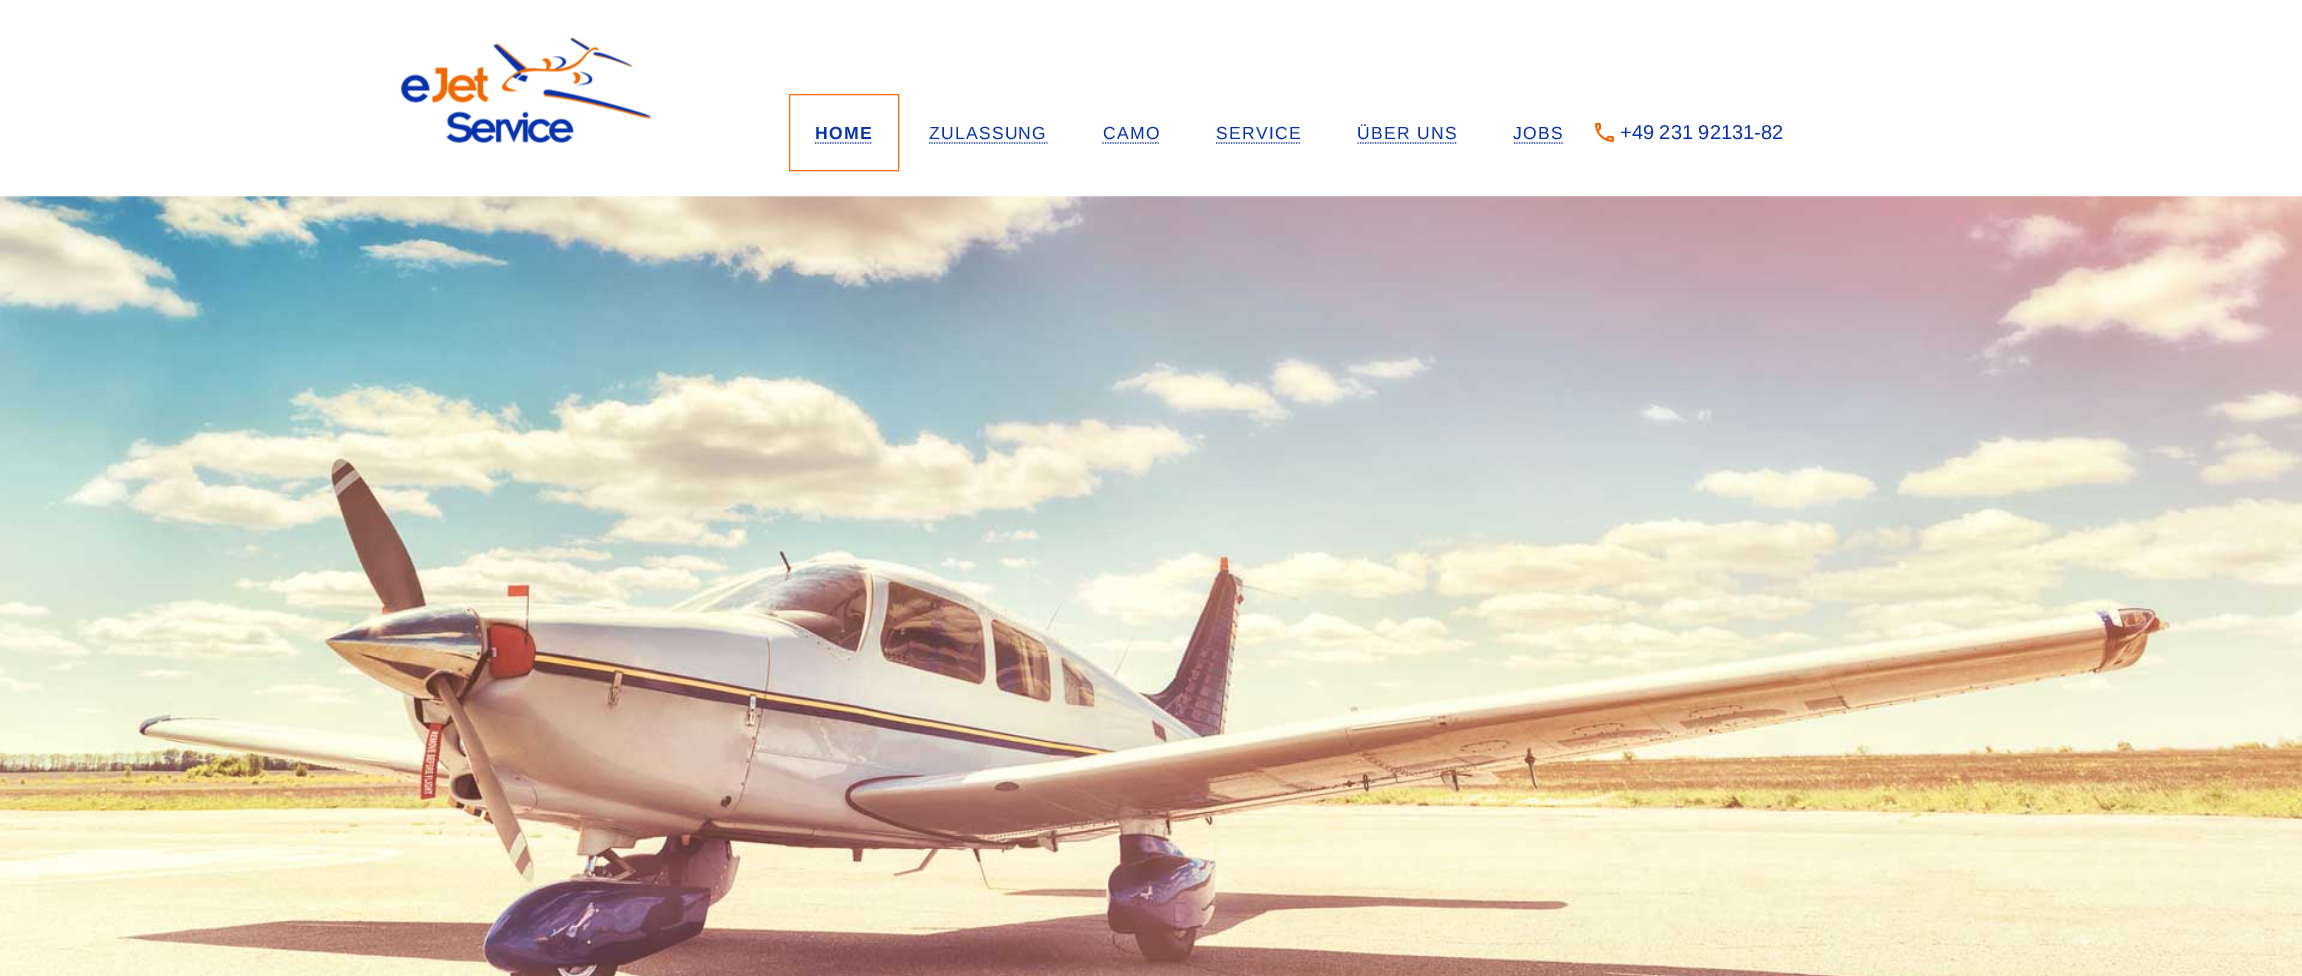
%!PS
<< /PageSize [2302 976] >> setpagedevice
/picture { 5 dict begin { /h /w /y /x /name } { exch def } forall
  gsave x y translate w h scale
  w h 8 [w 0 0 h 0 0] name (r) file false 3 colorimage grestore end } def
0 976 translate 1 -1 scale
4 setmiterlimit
1 setgray
0 0 2302 976 rectfill
(img1.rgb) 401 37 251 106 picture
1 0.4 0 setrgbcolor
789.5 94.5 109 76 rectstroke
/LiberationSans-Bold [17.5 0 0 -17.5 0 0] selectfont
0.027 0.196 0.671 setrgbcolor
815 139 moveto 1.25 0 (HOME) ashow
1.2 setlinewidth
[1.25 1.25] 0 setdash
newpath 815 143 moveto 872.5 143 lineto stroke
/LiberationSans-Regular [17.5 0 0 -17.5 0 0] selectfont
929 139 moveto 1.25 0 (ZULASSUNG) ashow
newpath 929 143 moveto 1047.5 143 lineto stroke
1103 139 moveto 1.25 0 (CAMO) ashow
newpath 1102.5 143 moveto 1160 143 lineto stroke
1216 139 moveto 1.25 0 (SERVICE) ashow
newpath 1216 143 moveto 1301 143 lineto stroke
1357 139 moveto 1.25 0 (ÜBER UNS) ashow
newpath 1357.5 143 moveto 1457.5 143 lineto stroke
1513 139 moveto 1.25 0 (JOBS) ashow
newpath 1514 143 moveto 1564 143 lineto stroke
(img2.rgb) 1595 123 19 19 picture
/LiberationSans-Regular [20 0 0 -20 0 0] selectfont
1620 139 moveto (+49 231 92131-82) show
(img3.rgb) 0 196 2302 780 picture
showpage
